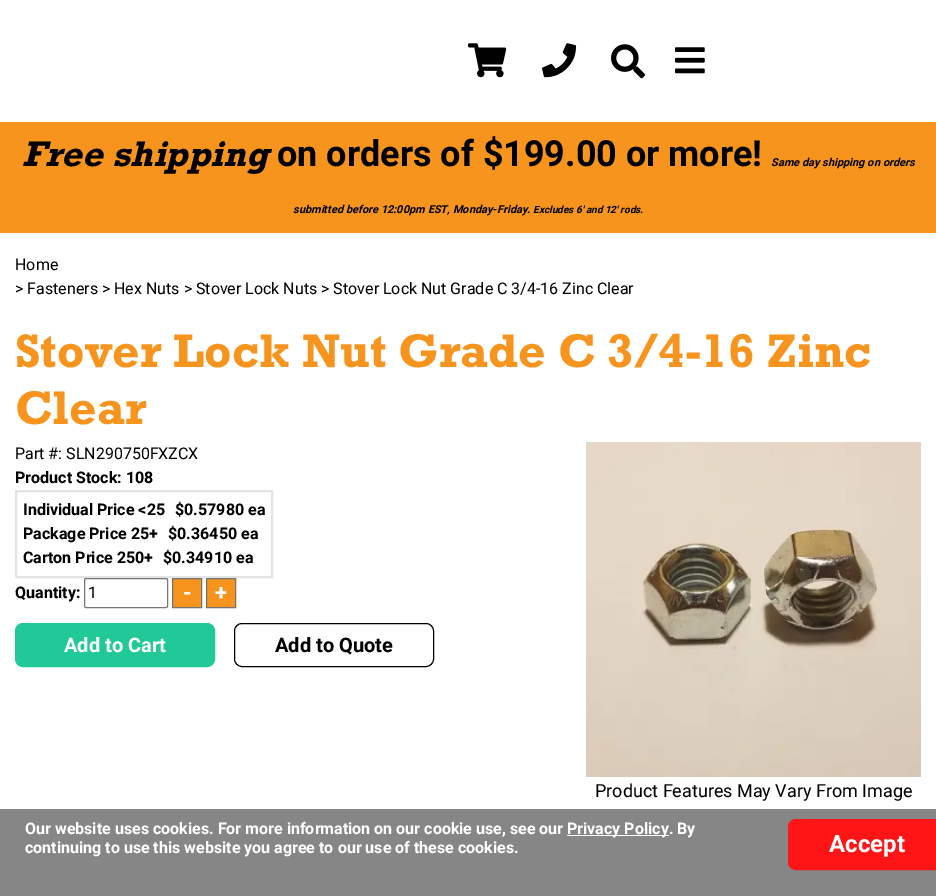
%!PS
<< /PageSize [936 896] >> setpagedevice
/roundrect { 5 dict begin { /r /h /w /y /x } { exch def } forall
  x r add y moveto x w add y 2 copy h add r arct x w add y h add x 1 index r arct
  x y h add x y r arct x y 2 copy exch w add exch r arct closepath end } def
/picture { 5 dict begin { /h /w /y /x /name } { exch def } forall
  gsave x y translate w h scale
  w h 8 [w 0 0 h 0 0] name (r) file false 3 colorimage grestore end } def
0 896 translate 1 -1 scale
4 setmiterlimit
1 setgray
0 0 936 896 rectfill
(img1.rgb) 468 43 39 35 picture
(img2.rgb) 542 43 35 35 picture
(img3.rgb) 611 44 34 35 picture
(img4.rgb) 675 47 30 27 picture
0.969 0.58 0.114 setrgbcolor
0 122 936 111 rectfill
/Rockwell-BoldItalic [36 0 0 -36 0 0] selectfont
0 setgray
22 166 moveto (Free shipping) show
/Roboto-Bold [36 0 0 -36 0 0] selectfont
277 166 moveto (on orders of $199.00 or more!) show
/Roboto-BoldItalic [11 0 0 -11 0 0] selectfont
771 166 moveto (Same day shipping on orders) show
293 213 moveto (submitted before 12:00pm EST, Monday-Friday.) show
/Roboto-BoldItalic [10 0 0 -10 0 0] selectfont
533 213 moveto (Excludes 6' and 12' rods.) show
/Roboto-Regular [16 0 0 -16 0 0] selectfont
15 270 moveto (Home) show
15 294 moveto (> Fasteners > Hex Nuts > Stover Lock Nuts > Stover Lock Nut Grade C 3/4-16 Zinc Clear) show
/Rockwell-Bold [48 0 0 -48 0 0] selectfont
0.969 0.58 0.114 setrgbcolor
15 367 moveto (Stover Lock Nut Grade C 3/4-16 Zinc) show
15 424 moveto (Clear) show
/Roboto-Regular [16 0 0 -16 0 0] selectfont
0 setgray
15 459 moveto (Part #: SLN290750FXZCX) show
/Roboto-Bold [16 0 0 -16 0 0] selectfont
15 483 moveto (Product Stock: 108) show
0.894 setgray
2 setlinewidth
16 491 256 86 rectstroke
0 setgray
23 515 moveto (Individual Price <25) show
175 515 moveto ($0.57980 ea) show
23 539 moveto (Package Price 25+) show
168 539 moveto ($0.36450 ea) show
23 563 moveto (Carton Price 250+) show
163 563 moveto ($0.34910 ea) show
15 598 moveto (Quantity:) show
0.463 setgray
1 setlinewidth
84.5 578.5 83 29 1.5 roundrect stroke
/Roboto-Regular [16 0 0 -16 0 0] selectfont
0 setgray
88 598 moveto (1) show
0.969 0.58 0.114 setrgbcolor
newpath 172.5 578.5 moveto 201.5 578.5 lineto 201.5 607.5 lineto 172.5 607.5 lineto closepath gsave fill grestore
0.451 setgray
stroke
/Roboto-Bold [22 0 0 -22 0 0] selectfont
1 setgray
183 600 moveto (-) show
0.969 0.58 0.114 setrgbcolor
newpath 206.5 578.5 moveto 235.5 578.5 lineto 235.5 607.5 lineto 206.5 607.5 lineto closepath gsave fill grestore
0.451 setgray
stroke
1 setgray
215 600 moveto (+) show
0.125 0.788 0.592 setrgbcolor
15.5 623.5 199 43 7.5 roundrect gsave fill grestore
stroke
/Roboto-Bold [20 0 0 -20 0 0] selectfont
1 setgray
64 652 moveto (Add to Cart) show
0 setgray
234.5 623.5 199 43 7.5 roundrect stroke
275 652 moveto (Add to Quote) show
(img5.rgb) 586 442 335 335 picture
/Roboto-Regular [18 0 0 -18 0 0] selectfont
595 797 moveto (Product Features May Vary From Image) show
0.525 setgray
0 809 936 87 rectfill
/Roboto-Bold [16 0 0 -16 0 0] selectfont
1 setgray
25 834 moveto (Our website uses cookies. For more information on our cookie use, see our) show
567 835 102 1 rectfill
567 834 moveto (Privacy Policy. By) show
25 853 moveto (continuing to use this website you agree to our use of these cookies.) show
1 0.082 0.082 setrgbcolor
788.5 819.5 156 50 7.5 roundrect gsave fill grestore
stroke
/Roboto-Bold [24 0 0 -24 0 0] selectfont
1 setgray
829 852 moveto (Accept) show
showpage
